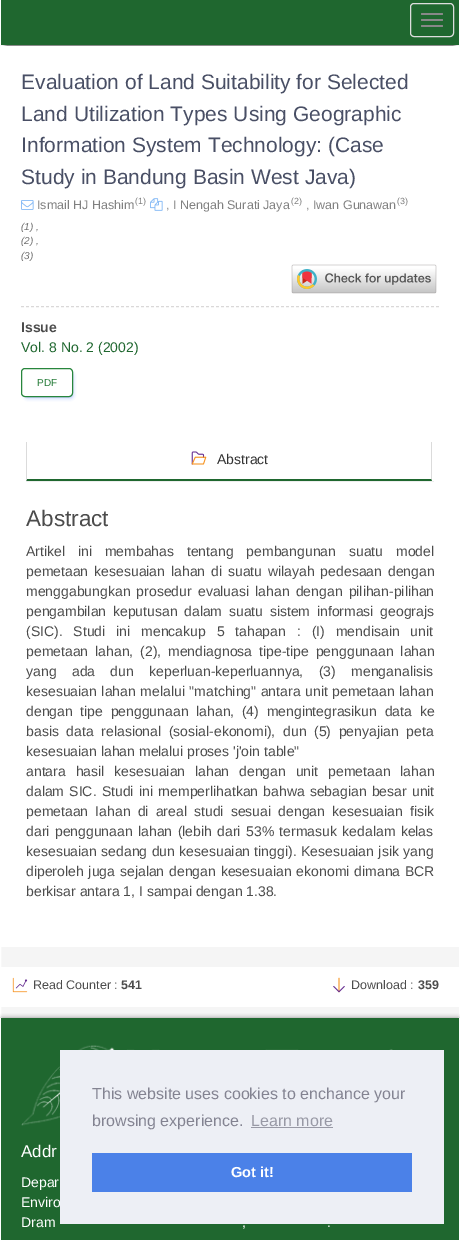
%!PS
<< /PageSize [460 1240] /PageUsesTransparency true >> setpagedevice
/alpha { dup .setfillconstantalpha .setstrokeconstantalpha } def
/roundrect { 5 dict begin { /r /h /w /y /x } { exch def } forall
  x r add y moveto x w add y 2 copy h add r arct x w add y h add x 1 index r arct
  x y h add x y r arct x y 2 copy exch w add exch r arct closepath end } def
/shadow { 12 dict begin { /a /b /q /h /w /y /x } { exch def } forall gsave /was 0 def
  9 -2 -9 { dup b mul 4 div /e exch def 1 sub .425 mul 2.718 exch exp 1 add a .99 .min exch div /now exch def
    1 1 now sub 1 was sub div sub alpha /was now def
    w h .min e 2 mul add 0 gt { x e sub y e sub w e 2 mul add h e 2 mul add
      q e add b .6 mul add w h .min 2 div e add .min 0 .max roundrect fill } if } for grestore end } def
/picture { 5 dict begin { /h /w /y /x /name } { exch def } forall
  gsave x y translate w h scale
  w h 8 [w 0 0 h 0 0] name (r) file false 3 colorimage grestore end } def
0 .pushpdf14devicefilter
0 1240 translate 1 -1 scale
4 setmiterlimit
0.961 setgray
0 0 460 1240 rectfill
1 setgray
0.5 45.5 459 972 rectstroke
0 setgray
6 8 448 38 0 2.5 0.75 shadow
0.122 0.404 0.184 setrgbcolor
1 0 458 45 rectfill
1 setgray
459 0 1 45 rectfill
0 0 1 45 rectfill
0.867 setgray
410.5 3.5 43 33 3.5 roundrect stroke
0.533 setgray
421 13 22 2 1 roundrect fill
421 19 22 2 1 roundrect fill
421 25 22 2 1 roundrect fill
1 setgray
1 46 458 901 rectfill
0.855 0.847 0.847 setrgbcolor
[3 2] 0 setdash
newpath 21 306.5 moveto 439 306.5 lineto stroke
/LiberationSans-Regular [21 0 0 -21 0 0] selectfont
0.286 0.31 0.396 setrgbcolor
21 89 moveto (Evaluation of Land Suitability for Selected) show
21 121 moveto (Land Utilization Types Using Geographic) show
21 152 moveto (Information System Technology: \(Case) show
21 184 moveto (Study in Bandung Basin West Java\)) show
(img1.rgb) 21 200 13 10 picture
/LiberationSans-Regular [12.5 0 0 -12.5 0 0] selectfont
0.502 setgray
37 209 moveto (Ismail HJ Hashim) show
/LiberationSans-Regular [9 0 0 -9 0 0] selectfont
135 204 moveto (\(1\)) show
(img2.rgb) 150 198 13 13 picture
/LiberationSans-Regular [12.5 0 0 -12.5 0 0] selectfont
166 209 moveto (, I Nengah Surati Jaya) show
/LiberationSans-Regular [9 0 0 -9 0 0] selectfont
291 204 moveto (\(2\)) show
/LiberationSans-Regular [12.5 0 0 -12.5 0 0] selectfont
306 209 moveto (, Iwan Gunawan) show
/LiberationSans-Regular [9 0 0 -9 0 0] selectfont
397 204 moveto (\(3\)) show
/LiberationSans-Italic [10 0 0 -10 0 0] selectfont
0.431 setgray
21 230 moveto (\(1\) ,) show
21 244 moveto (\(2\) ,) show
21 259 moveto (\(3\)) show
(img3.rgb) 291 264 146 30 picture
/LiberationSans-Bold [14 0 0 -14 0 0] selectfont
0.298 setgray
21 332 moveto (Issue) show
/LiberationSans-Regular [14 0 0 -14 0 0] selectfont
0.122 0.404 0.184 setrgbcolor
21 352 moveto (Vol. 8 No. 2 \(2002\)) show
gsave
newpath 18 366 moveto 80 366 lineto 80 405 lineto 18 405 lineto closepath 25 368 moveto 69 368 lineto 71 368 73 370 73 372 curveto 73 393 lineto 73 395 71 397 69 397 curveto 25 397 lineto 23 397 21 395 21 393 curveto 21 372 lineto 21 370 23 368 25 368 curveto closepath eoclip newpath
0.043 0.278 0.969 setrgbcolor
27 375 44 21 0 2.5 0.75 shadow
grestore
0.157 0.525 0.239 setrgbcolor
[] 0 setdash
21.5 368.5 51 28 3.5 roundrect stroke
/LiberationSans-Regular [10 0 0 -10 0 0] selectfont
0.145 0.482 0.22 setrgbcolor
37 386 moveto (PDF) show
0.859 setgray
26 442 406 1 rectfill
newpath 432 442 moveto 432 481 lineto 431 479 lineto 431 443 lineto closepath fill
0.122 0.404 0.184 setrgbcolor
newpath 432 481 moveto 26 481 lineto 27 479 lineto 431 479 lineto closepath fill
0.859 setgray
newpath 26 481 moveto 26 442 lineto 27 443 lineto 27 479 lineto closepath fill
1 setgray
27 439 404 40 2 roundrect fill
(img4.rgb) 191 451 16 14 picture
/LiberationSans-Regular [14 0 0 -14 0 0] selectfont
0.2 setgray
217 464 moveto (Abstract) show
0.933 setgray
26 481 408 1 rectfill
/LiberationSans-Regular [22.5 0 0 -22.5 0 0] selectfont
0.298 setgray
26 526 moveto (Abstract) show
/LiberationSans-Regular [14 0 0 -14 0 0] selectfont
26 556 moveto 9 0 32 (Artikel ini membahas tentang pembangunan suatu model) widthshow
26 576 moveto 2 0 32 (pemetaan kesesuaian lahan di suatu wilayah pedesaan dengan) widthshow
26 596 moveto 2.25 0 32 (menggabungkan prosedur evaluasi lahan dengan pilihan-pilihan) widthshow
26 616 moveto 2.75 0 32 (pengambilan keputusan dalam suatu sistem informasi geograjs) widthshow
26 636 moveto 7 0 32 (\(SIC\). Studi ini mencakup 5 tahapan : \(I\) mendisain unit) widthshow
26 656 moveto 3 0 32 (pemetaan lahan, \(2\), mendiagnosa tipe-tipe penggunaan lahan) widthshow
26 676 moveto 11.5 0 32 (yang ada dun keperluan-keperluannya, \(3\) menganalisis) widthshow
26 696 moveto 0.75 0 32 (kesesuaian lahan melalui "matching" antara unit pemetaan lahan) widthshow
26 716 moveto 3.75 0 32 (dengan tipe penggunaan lahan, \(4\) mengintegrasikun data ke) widthshow
26 736 moveto 3.75 0 32 (basis data relasional \(sosial-ekonomi\), dun \(5\) penyajian peta) widthshow
26 756 moveto (kesesuaian lahan melalui proses 'j'oin table") show
26 776 moveto 6 0 32 (antara hasil kesesuaian lahan dengan unit pemetaan lahan) widthshow
26 796 moveto 1.25 0 32 (dalam SIC. Studi ini rnemperlihatkan bahwa sebagian besar unit) widthshow
26 816 moveto 3.25 0 32 (pemetaan Iahan di areal studi sesuai dengan kesesuaian fisik) widthshow
26 836 moveto 1.5 0 32 (dari penggunaan lahan \(lebih dari 53% termasuk kedalam kelas) widthshow
26 856 moveto 0.5 0 32 (kesesuaian sedang dun kesesuaian tinggi\). Kesesuaian jsik yang) widthshow
26 876 moveto 1 0 32 (diperoleh juga sejalan dengan kesesuaian ekonomi dimana BCR) widthshow
26 896 moveto (berkisar antara 1, I sampai dengan 1.38.) show
1 setgray
1 967 458 40 rectfill
(img5.rgb) 12 977 16 16 picture
/LiberationSans-Regular [12.5 0 0 -12.5 0 0] selectfont
0.298 setgray
33 989 moveto (Read Counter :) show
/LiberationSans-Bold [12.5 0 0 -12.5 0 0] selectfont
121 989 moveto (541) show
(img6.rgb) 333 977 12 16 picture
/LiberationSans-Regular [12.5 0 0 -12.5 0 0] selectfont
351 989 moveto (Download :) show
/LiberationSans-Bold [12.5 0 0 -12.5 0 0] selectfont
418 989 moveto (359) show
0 setgray
2 1019 456 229 0 2.5 0.75 shadow
0.122 0.404 0.184 setrgbcolor
1 1018 458 222 rectfill
1 setgray
459 1018 1 222 rectfill
0 1018 1 222 rectfill
(img7.rgb) 21 1045 372 81 picture
/LiberationSans-Regular [17 0 0 -17 0 0] selectfont
21 1157 moveto (Addr) show
/LiberationSans-Regular [14 0 0 -14 0 0] selectfont
21 1187 moveto (Depar) show
21 1207 moveto (Enviro) show
21 1227 moveto (Dram) show
242 1227 moveto (,) show
327 1227 moveto (.) show
0.929 0.937 0.961 setrgbcolor
60 1050 384 174 rectfill
/LiberationSans-Regular [16 0 0 -16 0 0] selectfont
0.514 0.514 0.569 setrgbcolor
92 1099 moveto (This website uses cookies to enchance your) show
92 1126 moveto (browsing experience.) show
0.596 0.6 0.647 setrgbcolor
251 1126 moveto (Learn more) show
251 1127 82 1 rectfill
0.294 0.506 0.91 setrgbcolor
92 1153 320 39 rectfill
/LiberationSans-Bold [14.5 0 0 -14.5 0 0] selectfont
1 setgray
231 1177 moveto (Got it!) show
.poppdf14devicefilter showpage
